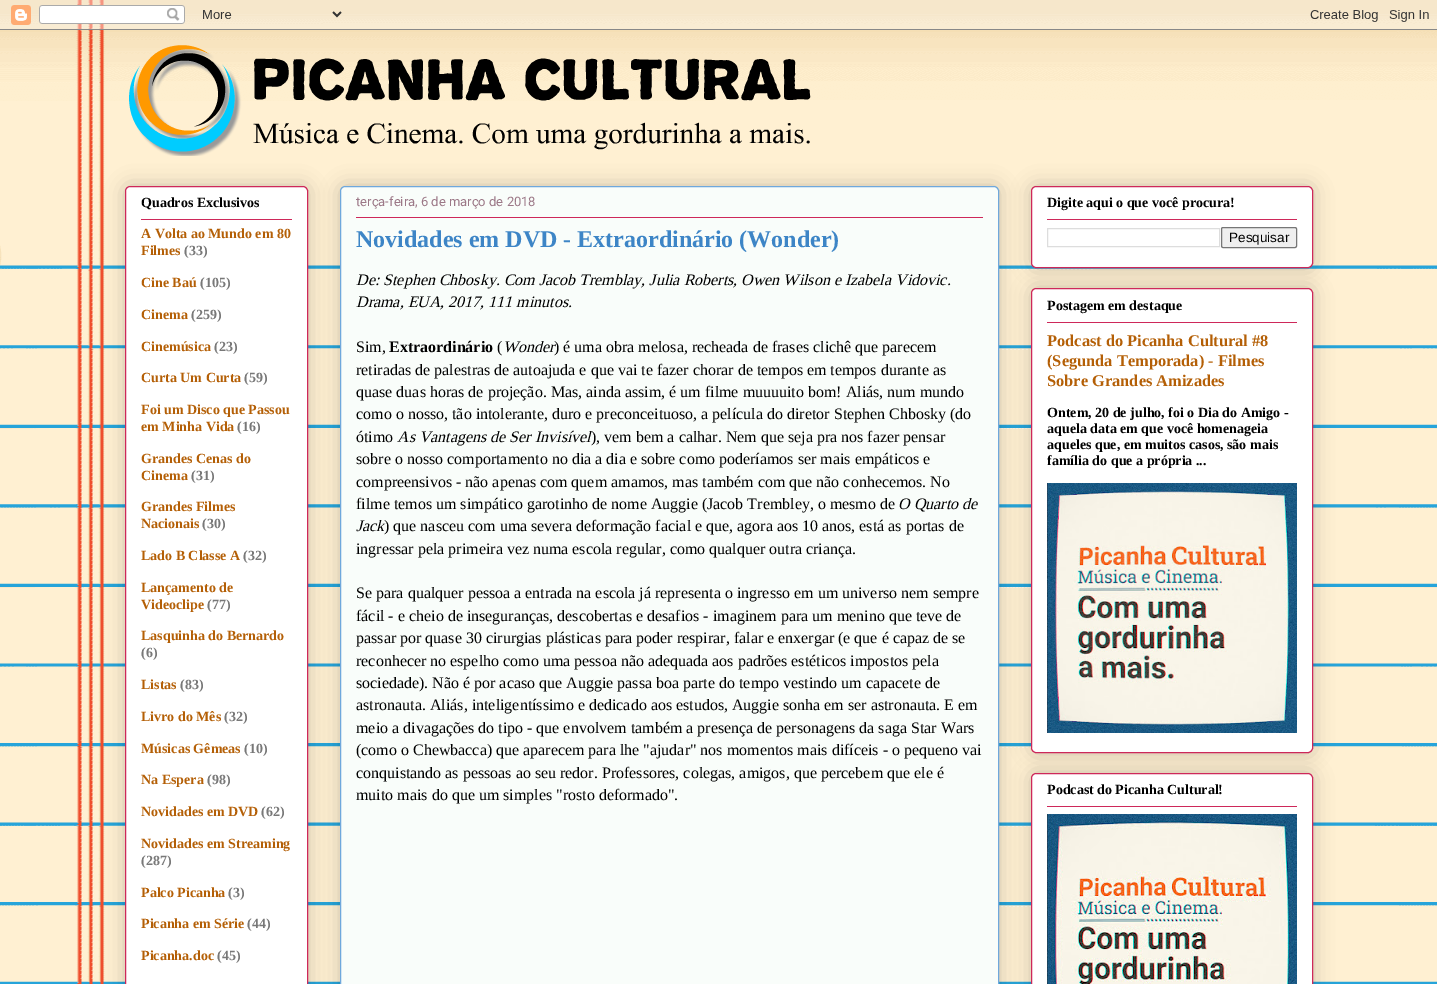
%!PS
<< /PageSize [1437 984] /PageUsesTransparency true >> setpagedevice
/alpha { dup .setfillconstantalpha .setstrokeconstantalpha } def
/roundrect { 5 dict begin { /r /h /w /y /x } { exch def } forall
  x r add y moveto x w add y 2 copy h add r arct x w add y h add x 1 index r arct
  x y h add x y r arct x y 2 copy exch w add exch r arct closepath end } def
/shadow { 12 dict begin { /a /b /q /h /w /y /x } { exch def } forall gsave /was 0 def
  9 -2 -9 { dup b mul 4 div /e exch def 1 sub .425 mul 2.718 exch exp 1 add a .99 .min exch div /now exch def
    1 1 now sub 1 was sub div sub alpha /was now def
    w h .min e 2 mul add 0 gt { x e sub y e sub w e 2 mul add h e 2 mul add
      q e add b .6 mul add w h .min 2 div e add .min 0 .max roundrect fill } if } for grestore end } def
/picture { 5 dict begin { /h /w /y /x /name } { exch def } forall
  gsave x y translate w h scale
  w h 8 [w 0 0 h 0 0] name (r) file false 3 colorimage grestore end } def
0 .pushpdf14devicefilter
0 984 translate 1 -1 scale
4 setmiterlimit
1 setgray
0 0 1437 984 rectfill
(img1.rgb) 0 0 1437 984 picture
(img2.rgb) 0 0 1437 30 picture
(img3.rgb) 129 45 682 111 picture
0 setgray
125 186 183 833 5 10 0.2 shadow
1 setgray
125.5 186.5 182 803 4.5 roundrect gsave fill grestore
0.808 0.157 0.353 setrgbcolor
stroke
/Tinos-Bold [14 0 0 -14 0 0] selectfont
0 setgray
141 207 moveto (Quadros Exclusivos) show
0.808 0.157 0.353 setrgbcolor
141 219 151 1 rectfill
0.706 0.373 0.024 setrgbcolor
141 238 moveto (A Volta ao Mundo em 80) show
141 255 moveto (Filmes) show
0.471 setgray
184 255 moveto (\(33\)) show
0.706 0.373 0.024 setrgbcolor
141 287 moveto (Cine Baú) show
0.471 setgray
200 287 moveto (\(105\)) show
0.706 0.373 0.024 setrgbcolor
141 319 moveto (Cinema) show
0.471 setgray
191 319 moveto (\(259\)) show
0.706 0.373 0.024 setrgbcolor
141 351 moveto (Cinemúsica) show
0.471 setgray
214 351 moveto (\(23\)) show
0.706 0.373 0.024 setrgbcolor
141 382 moveto (Curta Um Curta) show
0.471 setgray
244 382 moveto (\(59\)) show
0.706 0.373 0.024 setrgbcolor
141 414 moveto (Foi um Disco que Passou) show
141 431 moveto (em Minha Vida) show
0.471 setgray
237 431 moveto (\(16\)) show
0.706 0.373 0.024 setrgbcolor
141 463 moveto (Grandes Cenas do) show
141 480 moveto (Cinema) show
0.471 setgray
191 480 moveto (\(31\)) show
0.706 0.373 0.024 setrgbcolor
141 511 moveto (Grandes Filmes) show
141 528 moveto (Nacionais) show
0.471 setgray
202 528 moveto (\(30\)) show
0.706 0.373 0.024 setrgbcolor
141 560 moveto (Lado B Classe A) show
0.471 setgray
243 560 moveto (\(32\)) show
0.706 0.373 0.024 setrgbcolor
141 592 moveto (Lançamento de) show
141 609 moveto (Videoclipe) show
0.471 setgray
207 609 moveto (\(77\)) show
0.706 0.373 0.024 setrgbcolor
141 640 moveto (Lasquinha do Bernardo) show
0.471 setgray
141 657 moveto (\(6\)) show
0.706 0.373 0.024 setrgbcolor
141 689 moveto (Listas) show
0.471 setgray
180 689 moveto (\(83\)) show
0.706 0.373 0.024 setrgbcolor
141 721 moveto (Livro do Mês) show
0.471 setgray
224 721 moveto (\(32\)) show
0.706 0.373 0.024 setrgbcolor
141 753 moveto (Músicas Gêmeas) show
0.471 setgray
244 753 moveto (\(10\)) show
0.706 0.373 0.024 setrgbcolor
141 784 moveto (Na Espera) show
0.471 setgray
207 784 moveto (\(98\)) show
0.706 0.373 0.024 setrgbcolor
141 816 moveto (Novidades em DVD) show
0.471 setgray
261 816 moveto (\(62\)) show
0.706 0.373 0.024 setrgbcolor
141 848 moveto (Novidades em Streaming) show
0.471 setgray
141 865 moveto (\(287\)) show
0.706 0.373 0.024 setrgbcolor
141 897 moveto (Palco Picanha) show
0.471 setgray
228 897 moveto (\(3\)) show
0.706 0.373 0.024 setrgbcolor
141 928 moveto (Picanha em Série) show
0.471 setgray
247 928 moveto (\(44\)) show
0.706 0.373 0.024 setrgbcolor
141 960 moveto (Picanha.doc) show
0.471 setgray
217 960 moveto (\(45\)) show
0 setgray
340 186 659 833 5 10 0.2 shadow
0.976 0.992 0.98 setrgbcolor
340.5 186.5 658 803 4.5 roundrect gsave fill grestore
0.435 0.659 0.863 setrgbcolor
stroke
/Roboto-Regular [13 0 0 -13 0 0] selectfont
0.612 0.471 0.529 setrgbcolor
356 206 moveto (terça-feira, 6 de março de 2018) show
0.808 0.157 0.353 setrgbcolor
356 217 627 1 rectfill
/Tinos-Bold [24 0 0 -24 0 0] selectfont
0.239 0.522 0.776 setrgbcolor
356 247 moveto (Novidades em DVD - Extraordinário \(Wonder\)) show
/Tinos-Italic [16 0 0 -16 0 0] selectfont
0 setgray
356 285 moveto (De: Stephen Chbosky. Com Jacob Tremblay, Julia Roberts, Owen Wilson e Izabela Vidovic.) show
356 307 moveto (Drama, EUA, 2017, 111 minutos.) show
/Tinos-Regular [16 0 0 -16 0 0] selectfont
356 352 moveto (Sim,) show
/Tinos-Bold [16 0 0 -16 0 0] selectfont
389 352 moveto (Extraordinário) show
/Tinos-Regular [16 0 0 -16 0 0] selectfont
497 352 moveto (\() show
/Tinos-Italic [16 0 0 -16 0 0] selectfont
503 352 moveto (Wonder) show
/Tinos-Regular [16 0 0 -16 0 0] selectfont
554 352 moveto (\) é uma obra melosa, recheada de frases clichê que parecem) show
356 375 moveto (retiradas de palestras de autoajuda e que vai te fazer chorar de tempos em tempos durante as) show
356 397 moveto (quase duas horas de projeção. Mas, ainda assim, é um filme muuuuito bom! Aliás, num mundo) show
356 419 moveto (como o nosso, tão intolerante, duro e preconceituoso, a película do diretor Stephen Chbosky \(do) show
356 442 moveto (ótimo) show
/Tinos-Italic [16 0 0 -16 0 0] selectfont
397 442 moveto (As Vantagens de Ser Invisível) show
/Tinos-Regular [16 0 0 -16 0 0] selectfont
591 442 moveto (\), vem bem a calhar. Nem que seja pra nos fazer pensar) show
356 464 moveto (sobre o nosso comportamento no dia a dia e sobre como poderíamos ser mais empáticos e) show
356 487 moveto (compreensivos - não apenas com quem amamos, mas também com que não conhecemos. No) show
356 509 moveto (filme temos um simpático garotinho de nome Auggie \(Jacob Trembley, o mesmo de) show
/Tinos-Italic [16 0 0 -16 0 0] selectfont
898 509 moveto (O Quarto de) show
356 531 moveto (Jack) show
/Tinos-Regular [16 0 0 -16 0 0] selectfont
384 531 moveto (\) que nasceu com uma severa deformação facial e que, agora aos 10 anos, está as portas de) show
356 554 moveto (ingressar pela primeira vez numa escola regular, como qualquer outra criança.) show
356 598 moveto (Se para qualquer pessoa a entrada na escola já representa o ingresso em um universo nem sempre) show
356 621 moveto (fácil - e cheio de inseguranças, descobertas e desafios - imaginem para um menino que teve de) show
356 643 moveto (passar por quase 30 cirurgias plásticas para poder respirar, falar e enxergar \(e que é capaz de se) show
356 666 moveto (reconhecer no espelho como uma pessoa não adequada aos padrões estéticos impostos pela) show
356 688 moveto (sociedade\). Não é por acaso que Auggie passa boa parte do tempo vestindo um capacete de) show
356 710 moveto (astronauta. Aliás, inteligentíssimo e dedicado aos estudos, Auggie sonha em ser astronauta. E em) show
356 733 moveto (meio a divagações do tipo - que envolvem também a presença de personagens da saga Star Wars) show
356 755 moveto (\(como o Chewbacca\) que aparecem para lhe "ajudar" nos momentos mais difíceis - o pequeno vai) show
356 778 moveto (conquistando as pessoas ao seu redor. Professores, colegas, amigos, que percebem que ele é) show
356 800 moveto (muito mais do que um simples "rosto deformado".) show
1031 186 282 82 5 10 0.2 shadow
1 setgray
1031.5 186.5 281 81 4.5 roundrect gsave fill grestore
0.808 0.157 0.353 setrgbcolor
stroke
/Tinos-Bold [14 0 0 -14 0 0] selectfont
0 setgray
1047 207 moveto (Digite aqui o que você procura!) show
0.808 0.157 0.353 setrgbcolor
1047 219 250 1 rectfill
0.867 setgray
1047.5 228.5 172 18 rectstroke
0.937 setgray
1221.5 227.5 75 20 1.5 roundrect gsave fill grestore
0.463 setgray
stroke
/LiberationSans-Regular [13.5 0 0 -13.5 0 0] selectfont
0 setgray
1229 242 moveto (Pesquisar) show
1031 288 282 465 5 10 0.2 shadow
1 setgray
1031.5 288.5 281 464 4.5 roundrect gsave fill grestore
0.808 0.157 0.353 setrgbcolor
stroke
/Tinos-Bold [14 0 0 -14 0 0] selectfont
0 setgray
1047 310 moveto (Postagem em destaque) show
0.808 0.157 0.353 setrgbcolor
1047 322 250 1 rectfill
/Tinos-Bold [16.4 0 0 -16.4 0 0] selectfont
0.706 0.373 0.024 setrgbcolor
1047 346 moveto (Podcast do Picanha Cultural #8) show
1047 366 moveto (\(Segunda Temporada\) - Filmes) show
1047 386 moveto (Sobre Grandes Amizades) show
/Tinos-Bold [14 0 0 -14 0 0] selectfont
0 setgray
1047 417 moveto (Ontem, 20 de julho, foi o Dia do Amigo -) show
1047 433 moveto (aquela data em que você homenageia) show
1047 449 moveto (aqueles que, em muitos casos, são mais) show
1047 465 moveto (família do que a própria ...) show
(img4.rgb) 1047 483 250 250 picture
1031 773 282 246 5 10 0.2 shadow
1 setgray
1031.5 773.5 281 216 4.5 roundrect gsave fill grestore
0.808 0.157 0.353 setrgbcolor
stroke
0 setgray
1047 794 moveto (Podcast do Picanha Cultural!) show
0.808 0.157 0.353 setrgbcolor
1047 806 250 1 rectfill
(img5.rgb) 1047 814 250 170 picture
.poppdf14devicefilter showpage
